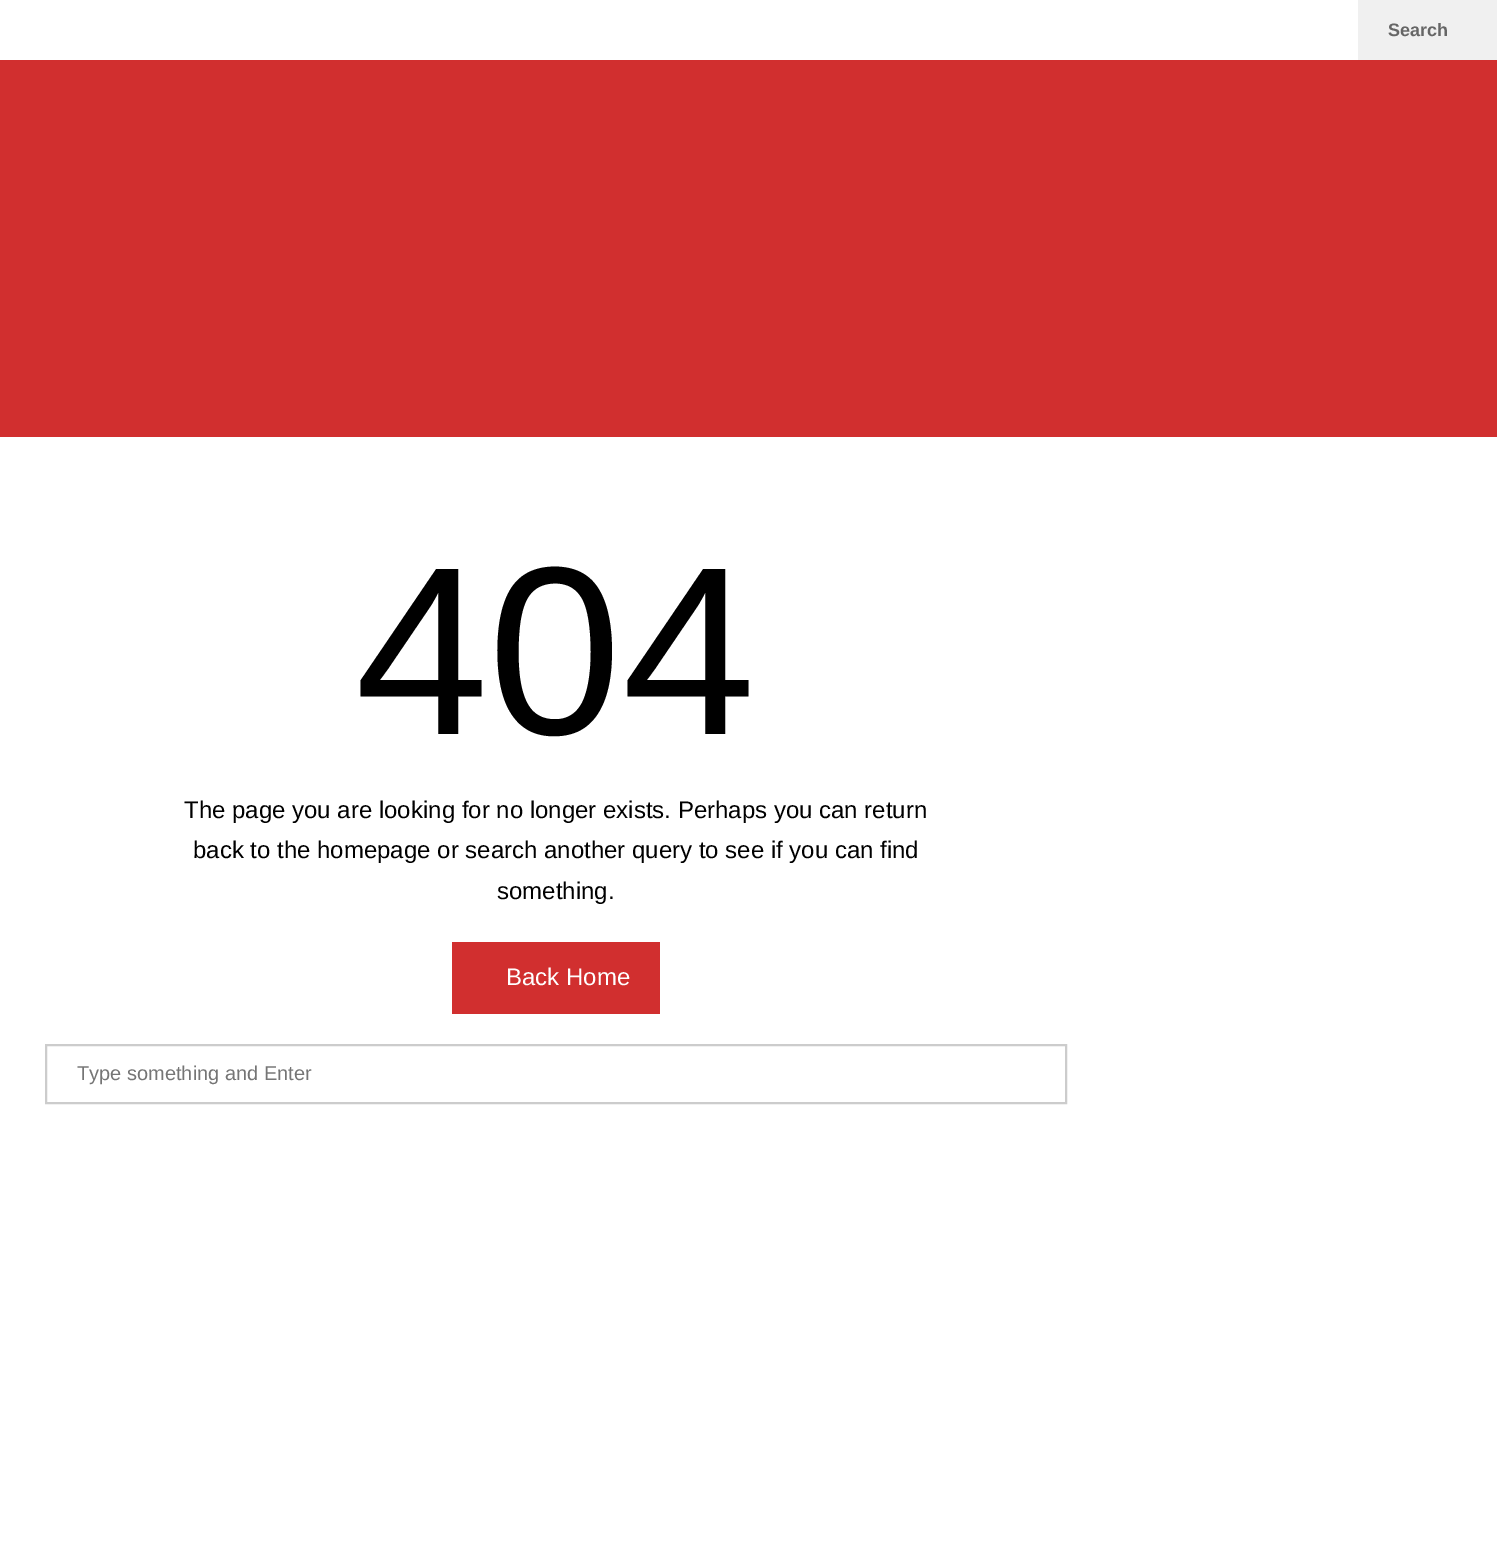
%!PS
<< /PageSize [1497 1550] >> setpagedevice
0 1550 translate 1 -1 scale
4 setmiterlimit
1 setgray
0 0 1497 1550 rectfill
0.941 setgray
1358 0 139 60 rectfill
/LiberationSans-Bold [18 0 0 -18 0 0] selectfont
0.4 setgray
1388 36 moveto (Search) show
0.82 0.184 0.184 setrgbcolor
0 60 1497 377 rectfill
/LiberationSans-Regular [240 0 0 -240 0 0] selectfont
0 setgray
355 734 moveto (404) show
/LiberationSans-Regular [24 0 0 -24 0 0] selectfont
184 818 moveto (The page you are looking for no longer exists. Perhaps you can return) show
193 858 moveto (back to the homepage or search another query to see if you can find) show
497 899 moveto (something.) show
0.82 0.184 0.184 setrgbcolor
452 942 208 72 rectfill
1 setgray
506 985 moveto (Back Home) show
0.8 setgray
2 setlinewidth
46 1045 1020 58 rectstroke
/LiberationSans-Regular [20 0 0 -20 0 0] selectfont
0.459 setgray
77 1080 moveto (Type something and Enter) show
showpage
